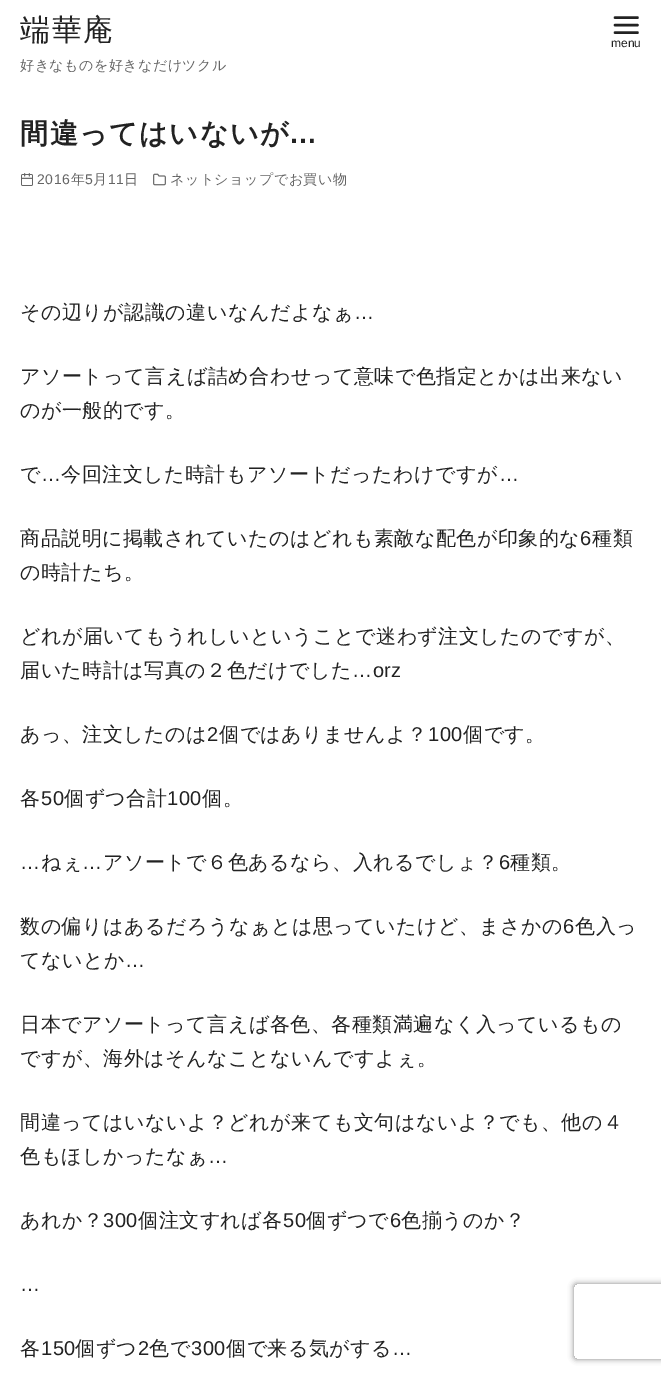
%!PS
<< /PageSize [661 1376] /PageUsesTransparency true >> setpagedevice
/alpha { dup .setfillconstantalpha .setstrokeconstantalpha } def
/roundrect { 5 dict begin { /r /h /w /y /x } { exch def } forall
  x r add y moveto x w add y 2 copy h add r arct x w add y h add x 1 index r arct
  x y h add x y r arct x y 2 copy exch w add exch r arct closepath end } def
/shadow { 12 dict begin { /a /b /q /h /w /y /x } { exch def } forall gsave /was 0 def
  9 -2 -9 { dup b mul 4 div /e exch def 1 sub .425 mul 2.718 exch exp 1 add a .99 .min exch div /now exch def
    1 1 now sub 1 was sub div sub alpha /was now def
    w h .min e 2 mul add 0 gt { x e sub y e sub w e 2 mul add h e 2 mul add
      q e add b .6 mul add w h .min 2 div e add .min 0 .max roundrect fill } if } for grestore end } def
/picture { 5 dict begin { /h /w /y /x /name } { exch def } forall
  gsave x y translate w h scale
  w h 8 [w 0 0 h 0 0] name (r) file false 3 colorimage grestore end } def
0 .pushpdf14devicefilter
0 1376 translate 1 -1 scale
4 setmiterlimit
1 setgray
0 0 661 1376 rectfill
/WenQuanYiZenHei-Medium [30 0 0 -30 0 0] selectfont
0.133 setgray
20 40 moveto 1.5 0 (端華庵) ashow
/WenQuanYiZenHei-Medium [14 0 0 -14 0 0] selectfont
0.396 setgray
20 70 moveto 0.5 0 (好きなものを好きなだけツクル) ashow
0.133 setgray
2.5 setlinewidth
1 setlinecap
1 setlinejoin
newpath 615 25 moveto 637.5 25 lineto 615 17.5 moveto 637.5 17.5 lineto 615 32.5 moveto 637.5 32.5 lineto stroke
/LiberationSans-Regular [12 0 0 -12 0 0] selectfont
611 47 moveto (menu) show
/WenQuanYiZenHei-Bold [28 0 0 -28 0 0] selectfont
20 143 moveto 1.5 0 (間違ってはいないが) ashow
/LiberationSans-Bold [28 0 0 -28 0 0] selectfont
289 143 moveto 1.5 0 (…) ashow
(img1.rgb) 21 173 12 13 picture
/LiberationSans-Regular [14 0 0 -14 0 0] selectfont
0.396 setgray
37 184 moveto 0.5 0 (2016) ashow
/WenQuanYiZenHei-Medium [14 0 0 -14 0 0] selectfont
71 184 moveto 0.5 0 (年) ashow
/LiberationSans-Regular [14 0 0 -14 0 0] selectfont
85 184 moveto 0.5 0 (5) ashow
/WenQuanYiZenHei-Medium [14 0 0 -14 0 0] selectfont
93 184 moveto 0.5 0 (月) ashow
/LiberationSans-Regular [14 0 0 -14 0 0] selectfont
108 184 moveto 0.5 0 (11) ashow
/WenQuanYiZenHei-Medium [14 0 0 -14 0 0] selectfont
124 184 moveto 0.5 0 (日) ashow
(img2.rgb) 153 173 13 13 picture
170 184 moveto 0.5 0 (ネットショップでお買い物) ashow
/WenQuanYiZenHei-Medium [20 0 0 -20 0 0] selectfont
0.133 setgray
20 319 moveto 0.5 0 (その辺りが認識の違いなんだよなぁ) ashow
/LiberationSans-Regular [20 0 0 -20 0 0] selectfont
354 319 moveto 0.5 0 (…) ashow
/WenQuanYiZenHei-Medium [20 0 0 -20 0 0] selectfont
20 383 moveto 0.5 0 (アソートって言えば詰め合わせって意味で色指定とかは出来ない) ashow
20 417 moveto 0.5 0 (のが一般的です。) ashow
20 481 moveto 0.5 0 (で) ashow
/LiberationSans-Regular [20 0 0 -20 0 0] selectfont
41 481 moveto 0.5 0 (…) ashow
/WenQuanYiZenHei-Medium [20 0 0 -20 0 0] selectfont
61 481 moveto 0.5 0 (今回注文した時計もアソートだったわけですが) ashow
/LiberationSans-Regular [20 0 0 -20 0 0] selectfont
499 481 moveto 0.5 0 (…) ashow
/WenQuanYiZenHei-Medium [20 0 0 -20 0 0] selectfont
20 545 moveto 0.5 0 (商品説明に掲載されていたのはどれも素敵な配色が印象的な) ashow
/LiberationSans-Regular [20 0 0 -20 0 0] selectfont
580 545 moveto 0.5 0 (6) ashow
/WenQuanYiZenHei-Medium [20 0 0 -20 0 0] selectfont
592 545 moveto 0.5 0 (種類) ashow
20 579 moveto 0.5 0 (の時計たち。) ashow
20 643 moveto 0.5 0 (どれが届いてもうれしいということで迷わず注文したのですが、) ashow
20 677 moveto 0.5 0 (届いた時計は写真の２色だけでした) ashow
/LiberationSans-Regular [20 0 0 -20 0 0] selectfont
352 677 moveto 0.5 0 (…orz) ashow
/WenQuanYiZenHei-Medium [20 0 0 -20 0 0] selectfont
20 741 moveto 0.5 0 (あっ、注文したのは) ashow
/LiberationSans-Regular [20 0 0 -20 0 0] selectfont
207 741 moveto 0.5 0 (2) ashow
/WenQuanYiZenHei-Medium [20 0 0 -20 0 0] selectfont
219 741 moveto 0.5 0 (個ではありませんよ？) ashow
/LiberationSans-Regular [20 0 0 -20 0 0] selectfont
428 741 moveto 0.5 0 (100) ashow
/WenQuanYiZenHei-Medium [20 0 0 -20 0 0] selectfont
463 741 moveto 0.5 0 (個です。) ashow
20 805 moveto 0.5 0 (各) ashow
/LiberationSans-Regular [20 0 0 -20 0 0] selectfont
41 805 moveto 0.5 0 (50) ashow
/WenQuanYiZenHei-Medium [20 0 0 -20 0 0] selectfont
64 805 moveto 0.5 0 (個ずつ合計) ashow
/LiberationSans-Regular [20 0 0 -20 0 0] selectfont
167 805 moveto 0.5 0 (100) ashow
/WenQuanYiZenHei-Medium [20 0 0 -20 0 0] selectfont
202 805 moveto 0.5 0 (個。) ashow
/LiberationSans-Regular [20 0 0 -20 0 0] selectfont
20 869 moveto 0.5 0 (…) ashow
/WenQuanYiZenHei-Medium [20 0 0 -20 0 0] selectfont
41 869 moveto 0.5 0 (ねぇ) ashow
/LiberationSans-Regular [20 0 0 -20 0 0] selectfont
82 869 moveto 0.5 0 (…) ashow
/WenQuanYiZenHei-Medium [20 0 0 -20 0 0] selectfont
103 869 moveto 0.5 0 (アソートで６色あるなら、入れるでしょ？) ashow
/LiberationSans-Regular [20 0 0 -20 0 0] selectfont
499 869 moveto 0.5 0 (6) ashow
/WenQuanYiZenHei-Medium [20 0 0 -20 0 0] selectfont
510 869 moveto 0.5 0 (種類。) ashow
20 933 moveto 0.5 0 (数の偏りはあるだろうなぁとは思っていたけど、まさかの) ashow
/LiberationSans-Regular [20 0 0 -20 0 0] selectfont
563 933 moveto 0.5 0 (6) ashow
/WenQuanYiZenHei-Medium [20 0 0 -20 0 0] selectfont
575 933 moveto 0.5 0 (色入っ) ashow
20 967 moveto 0.5 0 (てないとか) ashow
/LiberationSans-Regular [20 0 0 -20 0 0] selectfont
125 967 moveto 0.5 0 (…) ashow
/WenQuanYiZenHei-Medium [20 0 0 -20 0 0] selectfont
20 1031 moveto 0.5 0 (日本でアソートって言えば各色、各種類満遍なく入っているもの) ashow
20 1065 moveto 0.5 0 (ですが、海外はそんなことないんですよぇ。) ashow
20 1129 moveto 0.5 0 (間違ってはいないよ？どれが来ても文句はないよ？でも、他の４) ashow
20 1163 moveto 0.5 0 (色もほしかったなぁ) ashow
/LiberationSans-Regular [20 0 0 -20 0 0] selectfont
208 1163 moveto 0.5 0 (…) ashow
/WenQuanYiZenHei-Medium [20 0 0 -20 0 0] selectfont
20 1227 moveto 0.5 0 (あれか？) ashow
/LiberationSans-Regular [20 0 0 -20 0 0] selectfont
103 1227 moveto 0.5 0 (300) ashow
/WenQuanYiZenHei-Medium [20 0 0 -20 0 0] selectfont
138 1227 moveto 0.5 0 (個注文すれば各) ashow
/LiberationSans-Regular [20 0 0 -20 0 0] selectfont
283 1227 moveto 0.5 0 (50) ashow
/WenQuanYiZenHei-Medium [20 0 0 -20 0 0] selectfont
306 1227 moveto 0.5 0 (個ずつで) ashow
/LiberationSans-Regular [20 0 0 -20 0 0] selectfont
390 1227 moveto 0.5 0 (6) ashow
/WenQuanYiZenHei-Medium [20 0 0 -20 0 0] selectfont
401 1227 moveto 0.5 0 (色揃うのか？) ashow
/LiberationSans-Regular [20 0 0 -20 0 0] selectfont
20 1291 moveto 0.5 0 (…) ashow
/WenQuanYiZenHei-Medium [20 0 0 -20 0 0] selectfont
20 1355 moveto 0.5 0 (各) ashow
/LiberationSans-Regular [20 0 0 -20 0 0] selectfont
41 1355 moveto 0.5 0 (150) ashow
/WenQuanYiZenHei-Medium [20 0 0 -20 0 0] selectfont
75 1355 moveto 0.5 0 (個ずつ) ashow
/LiberationSans-Regular [20 0 0 -20 0 0] selectfont
138 1355 moveto 0.5 0 (2) ashow
/WenQuanYiZenHei-Medium [20 0 0 -20 0 0] selectfont
149 1355 moveto 0.5 0 (色で) ashow
/LiberationSans-Regular [20 0 0 -20 0 0] selectfont
191 1355 moveto 0.5 0 (300) ashow
/WenQuanYiZenHei-Medium [20 0 0 -20 0 0] selectfont
226 1355 moveto 0.5 0 (個で来る気がする) ashow
/LiberationSans-Regular [20 0 0 -20 0 0] selectfont
392 1355 moveto 0.5 0 (…) ashow
gsave
newpath 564 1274 moveto 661 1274 lineto 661 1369 lineto 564 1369 lineto closepath 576.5 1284 moveto 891.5 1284 lineto 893 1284 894 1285 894 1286.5 curveto 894 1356.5 lineto 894 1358 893 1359 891.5 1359 curveto 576.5 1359 lineto 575 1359 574 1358 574 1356.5 curveto 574 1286.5 lineto 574 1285 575 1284 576.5 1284 curveto closepath eoclip newpath
0.502 setgray
574 1284 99 75 2.5 3 1 shadow
grestore
.poppdf14devicefilter showpage
